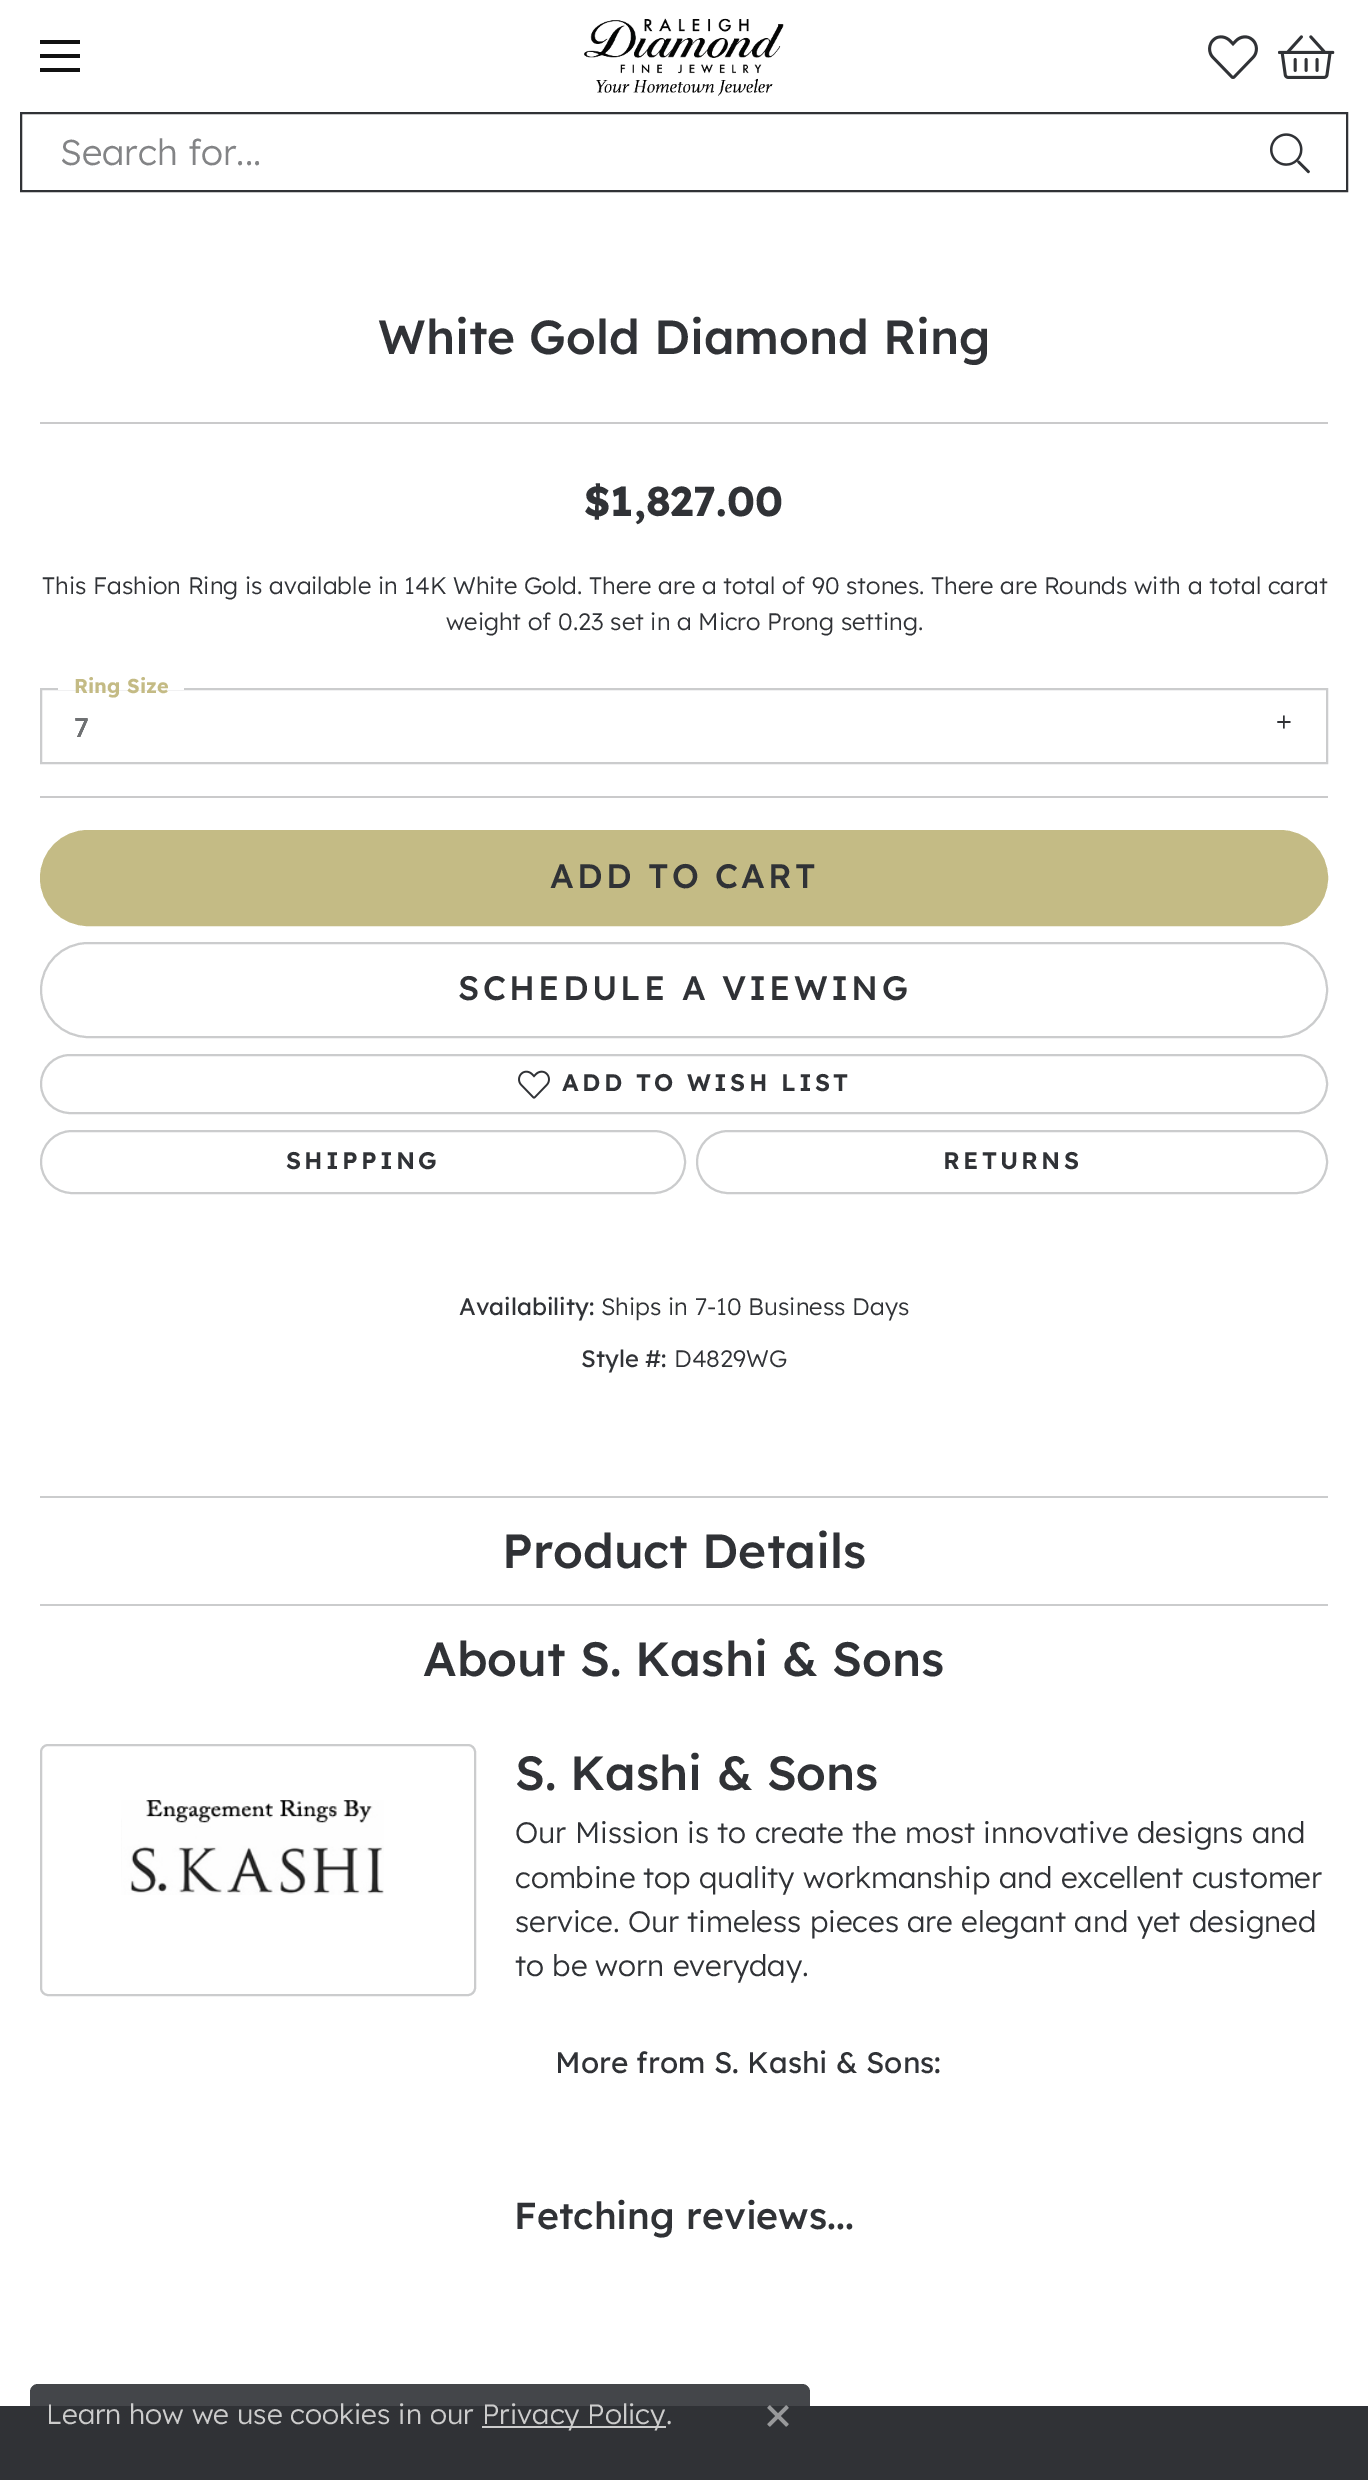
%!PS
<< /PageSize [1368 2480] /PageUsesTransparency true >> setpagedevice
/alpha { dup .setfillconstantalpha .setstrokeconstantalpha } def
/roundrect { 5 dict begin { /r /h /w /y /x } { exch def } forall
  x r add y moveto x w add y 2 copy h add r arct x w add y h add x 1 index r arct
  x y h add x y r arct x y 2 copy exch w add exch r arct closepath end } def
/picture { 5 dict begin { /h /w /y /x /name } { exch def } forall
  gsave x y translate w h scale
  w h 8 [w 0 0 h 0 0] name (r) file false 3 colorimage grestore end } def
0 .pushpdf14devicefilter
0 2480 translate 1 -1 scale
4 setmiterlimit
1 setgray
0 0 1368 2480 rectfill
0.067 setgray
40 40 40 4 rectfill
40 54 40 4 rectfill
40 68 40 4 rectfill
(img1.rgb) 584 18 200 78 picture
(img2.rgb) 1208 35 50 44 picture
(img3.rgb) 1278 35 57 44 picture
0.188 0.196 0.212 setrgbcolor
2 setlinewidth
21 113 1326 78 rectstroke
/LexendDeca-Light [36 0 0 -36 0 0] selectfont
0.514 0.518 0.525 setrgbcolor
60 165 moveto (Search for...) show
(img4.rgb) 1270 133 40 41 picture
/LexendDeca-Medium [47.8 0 0 -47.8 0 0] selectfont
0.188 0.196 0.212 setrgbcolor
378 354 moveto (White Gold Diamond Ring) show
0.792 0.792 0.796 setrgbcolor
40 422 1288 2 rectfill
/LexendDeca-Bold [41.5 0 0 -41.5 0 0] selectfont
0.188 0.196 0.212 setrgbcolor
584 516 moveto ($1,827.00) show
/LexendDeca-Light [23.77 0 0 -23.77 0 0] selectfont
42 594 moveto (This Fashion Ring is available in 14K White Gold. There are a total of 90 stones. There are Rounds with a total carat) show
446 630 moveto (weight of 0.23 set in a Micro Prong setting.) show
0.796 0.8 0.804 setrgbcolor
41 689 1286 74 rectstroke
1 setgray
58 688 126 2 rectfill
/LexendDeca-Bold [20 0 0 -20 0 0] selectfont
0.769 0.733 0.522 setrgbcolor
74 693 moveto (Ring Size) show
/LexendDeca-Regular [27 0 0 -27 0 0] selectfont
0.188 0.196 0.212 setrgbcolor
74 737 moveto (7) show
/LiberationSans-Regular [27 0 0 -27 0 0] selectfont
1276 731 moveto (+) show
/LexendDeca-Regular [27 0 0 -27 0 0] selectfont
0.435 0.443 0.451 setrgbcolor
74 737 moveto (7) show
0.792 0.792 0.796 setrgbcolor
40 796 1288 2 rectfill
0.769 0.733 0.522 setrgbcolor
41 831 1286 94 47 roundrect gsave fill grestore
stroke
/LexendDeca-Medium [33.9 0 0 -33.9 0 0] selectfont
0.188 0.196 0.212 setrgbcolor
550 888 moveto 3.25 0 (ADD TO CART) ashow
0.796 0.8 0.804 setrgbcolor
41 943 1286 94 47 roundrect stroke
0.188 0.196 0.212 setrgbcolor
458 1000 moveto 3.25 0 (SCHEDULE A VIEWING) ashow
0.796 0.8 0.804 setrgbcolor
41 1055 1286 58 29 roundrect stroke
(img5.rgb) 518 1070 32 29 picture
/LexendDeca-SemiBold [24 0 0 -24 0 0] selectfont
0.188 0.196 0.212 setrgbcolor
562 1091 moveto 3.25 0 (ADD TO WISH LIST) ashow
0.796 0.8 0.804 setrgbcolor
41 1131 644 62 31 roundrect stroke
0.188 0.196 0.212 setrgbcolor
286 1169 moveto 3.25 0 (SHIPPING) ashow
0.796 0.8 0.804 setrgbcolor
697 1131 630 62 31 roundrect stroke
0.188 0.196 0.212 setrgbcolor
943 1169 moveto 3.25 0 (RETURNS) ashow
/LexendDeca-Regular [23.77 0 0 -23.77 0 0] selectfont
459 1315 moveto (Availability:) show
/LexendDeca-Light [23.77 0 0 -23.77 0 0] selectfont
601 1315 moveto (Ships in 7-10 Business Days) show
/LexendDeca-Regular [23.77 0 0 -23.77 0 0] selectfont
581 1367 moveto (Style #:) show
/LexendDeca-Light [23.77 0 0 -23.77 0 0] selectfont
674 1367 moveto (D4829WG) show
0.796 0.8 0.804 setrgbcolor
40 1496 1288 2 rectfill
/LexendDeca-Medium [48 0 0 -48 0 0] selectfont
0.188 0.196 0.212 setrgbcolor
502 1568 moveto (Product Details) show
0.796 0.8 0.804 setrgbcolor
40 1604 1288 2 rectfill
0.188 0.196 0.212 setrgbcolor
423 1676 moveto (About S. Kashi & Sons) show
0.796 0.8 0.804 setrgbcolor
41 1745 434 250 7 roundrect stroke
(img6.rgb) 121 1800 263 95 picture
/LexendDeca-Medium [47.8 0 0 -47.8 0 0] selectfont
0.188 0.196 0.212 setrgbcolor
515 1790 moveto (S. Kashi & Sons) show
/LexendDeca-Light [29.6 0 0 -29.6 0 0] selectfont
515 1843 moveto (Our Mission is to create the most innovative designs and) show
515 1888 moveto (combine top quality workmanship and excellent customer) show
515 1932 moveto (service. Our timeless pieces are elegant and yet designed) show
515 1976 moveto (to be worn everyday.) show
/LexendDeca-Regular [29.6 0 0 -29.6 0 0] selectfont
555 2073 moveto (More from S. Kashi & Sons:) show
/LexendDeca-Medium [37.5 0 0 -37.5 0 0] selectfont
514 2229 moveto (Fetching reviews...) show
0 2406 1368 74 rectfill
0.9 alpha
30 2384 780 66 8 roundrect fill
/LexendDeca-Light [28 0 0 -28 0 0] selectfont
1 alpha
0.8 setgray
46 2424 moveto (Learn how we use cookies in our) show
482 2426 184 2 rectfill
482 2424 moveto (Privacy Policy.) show
(img7.rgb) 767 2405 22 22 picture
.poppdf14devicefilter showpage
